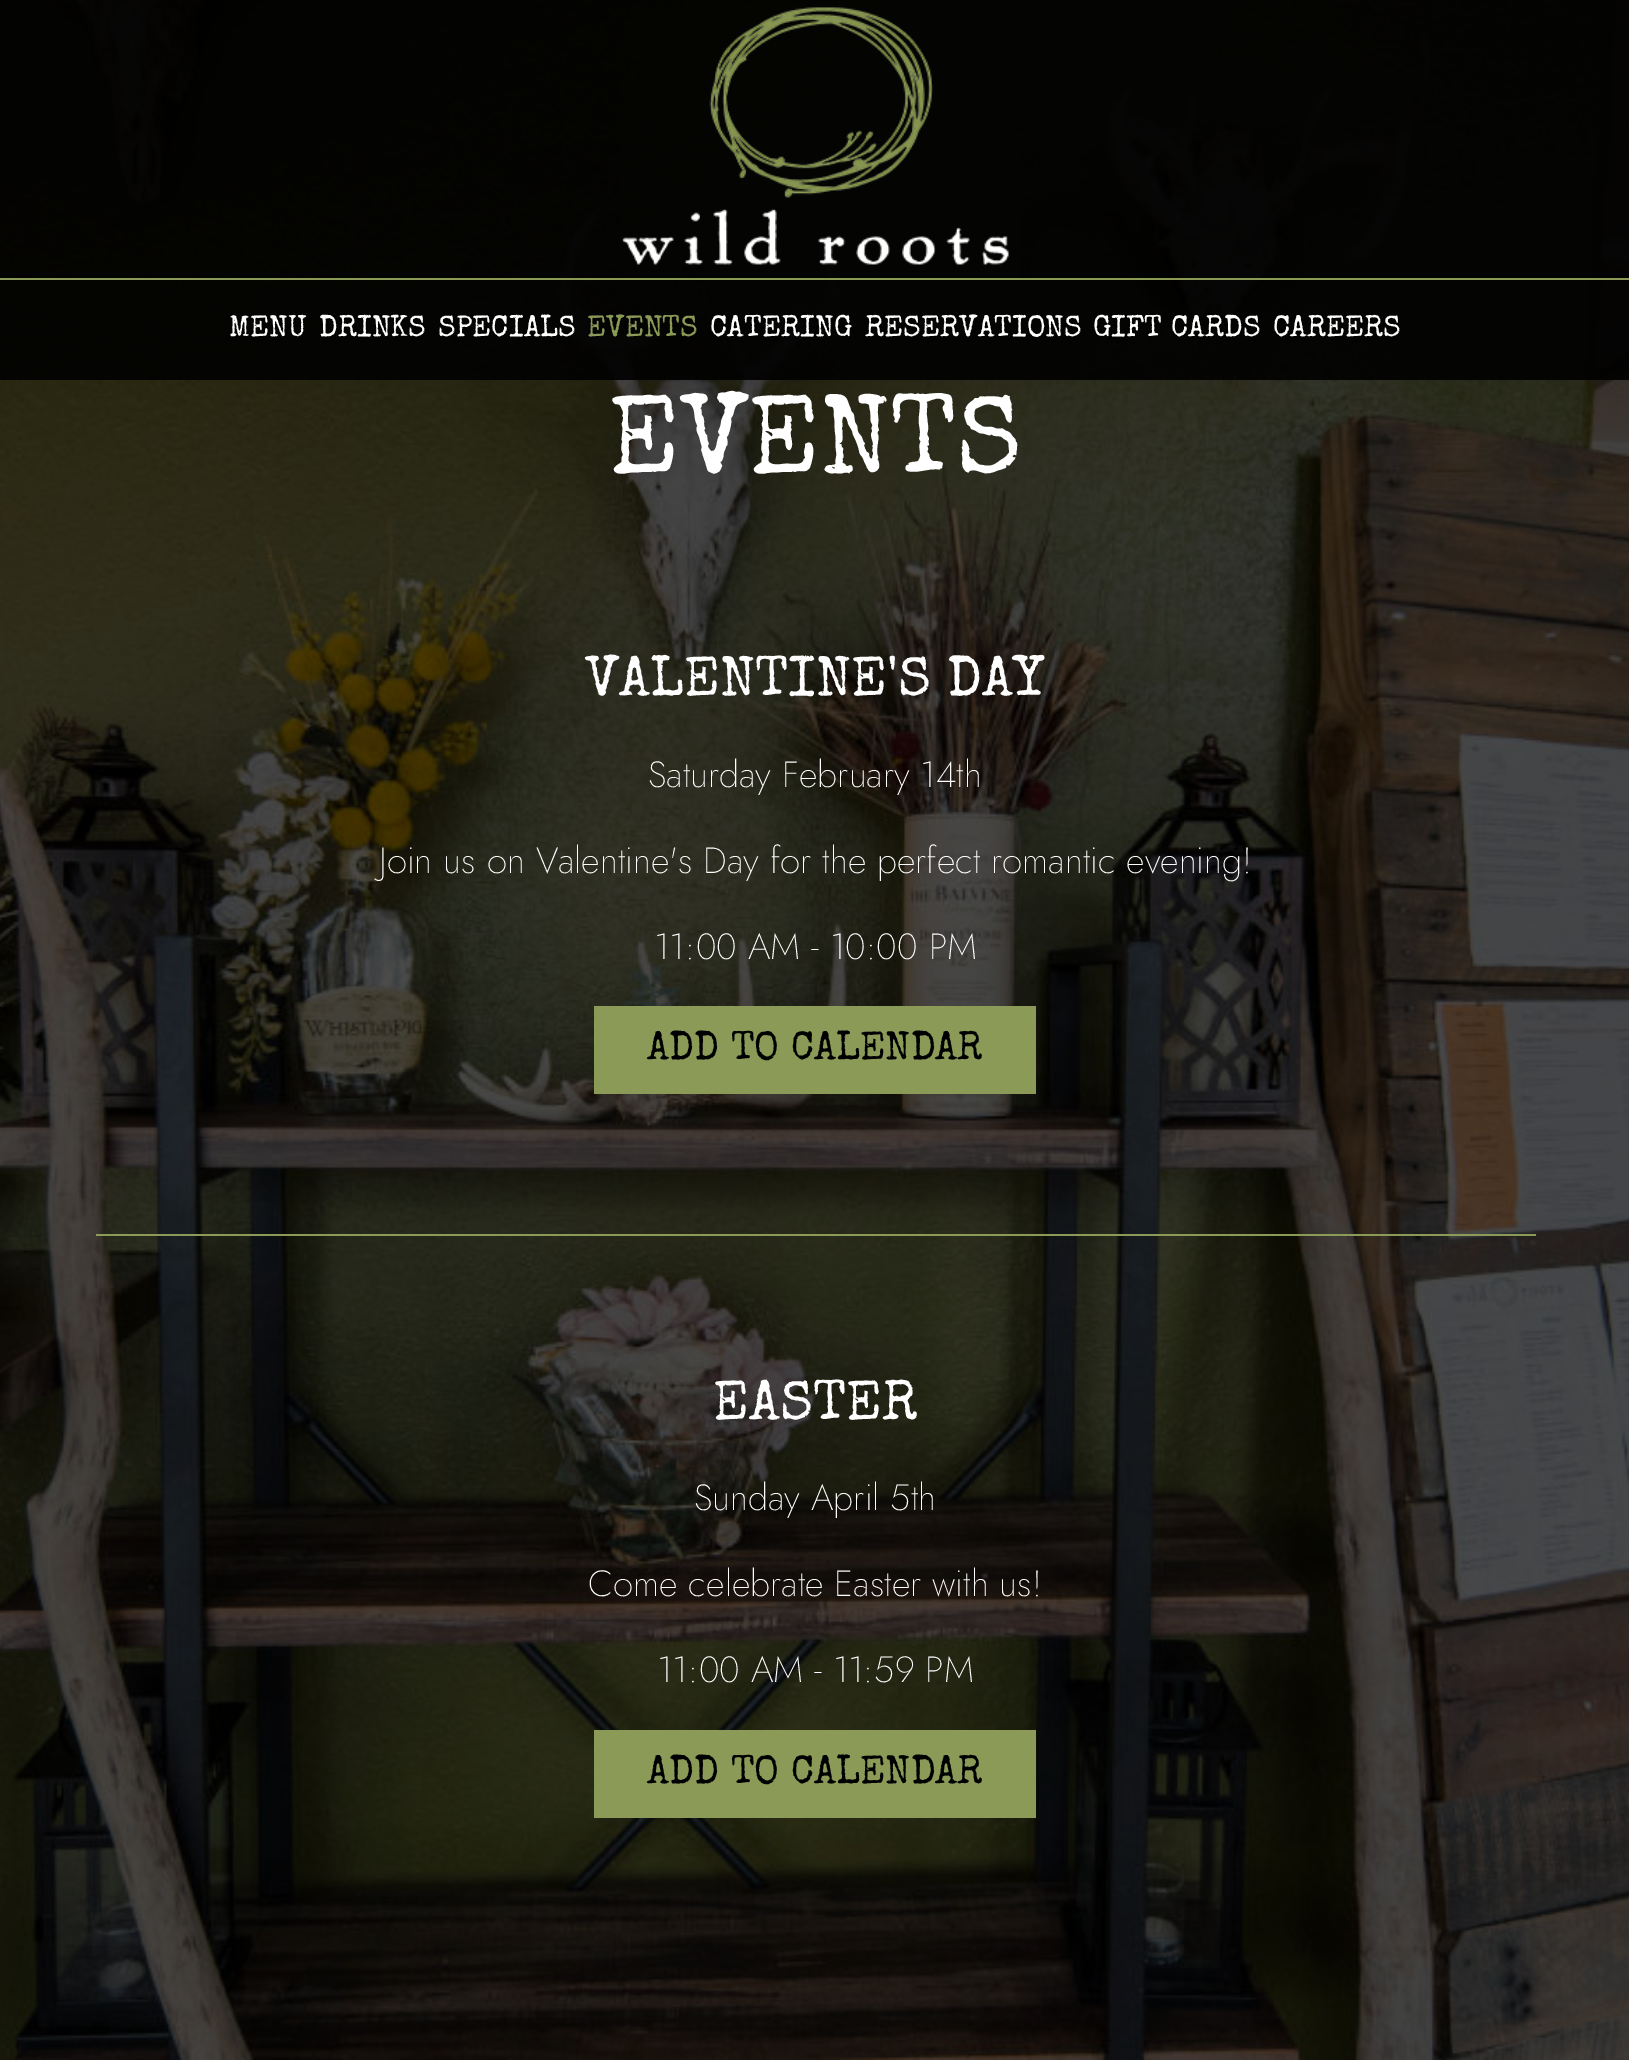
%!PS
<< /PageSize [1629 2060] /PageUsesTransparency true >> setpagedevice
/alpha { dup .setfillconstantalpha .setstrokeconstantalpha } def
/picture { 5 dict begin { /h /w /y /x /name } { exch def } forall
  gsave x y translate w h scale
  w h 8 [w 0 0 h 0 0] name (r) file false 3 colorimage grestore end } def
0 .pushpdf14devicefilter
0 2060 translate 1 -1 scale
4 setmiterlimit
1 setgray
0 0 1629 2060 rectfill
(img1.rgb) 0 0 1629 2060 picture
0.9 alpha
0 setgray
0 0 1629 278 rectfill
1 alpha
0.545 0.604 0.341 setrgbcolor
0 278 1629 2 rectfill
(img2.rgb) 622 7 387 258 picture
0.9 alpha
0 setgray
0 280 1629 100 rectfill
/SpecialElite-Regular [30 0 0 -30 0 0] selectfont
1 alpha
1 setgray
229 336 moveto (MENU) show
319 336 moveto (DRINKS) show
438 336 moveto (SPECIALS) show
0.545 0.604 0.341 setrgbcolor
587 336 moveto (EVENTS) show
1 setgray
710 336 moveto (CATERING) show
865 336 moveto (RESERVATIONS) show
1093 336 moveto (GIFT CARDS) show
1273 336 moveto (CAREERS) show
/SpecialElite-Regular [112 0 0 -112 0 0] selectfont
608 472 moveto (EVENTS) show
0.545 0.604 0.341 setrgbcolor
96 1234 1440 2 rectfill
/SpecialElite-Regular [56 0 0 -56 0 0] selectfont
1 setgray
585 695 moveto (VALENTINE'S DAY) show
/Jost-ExtraLight [36.4 0 0 -36.4 0 0] selectfont
648 787 moveto (Saturday February 14th) show
379 873 moveto (Join us on Valentine's Day for the perfect romantic evening!) show
654 959 moveto (11:00 AM - 10:00 PM) show
0.545 0.604 0.341 setrgbcolor
594 1006 442 88 rectfill
/SpecialElite-Regular [40 0 0 -40 0 0] selectfont
0 setgray
647 1059 moveto (ADD TO CALENDAR) show
/SpecialElite-Regular [56 0 0 -56 0 0] selectfont
1 setgray
713 1419 moveto (EASTER) show
/Jost-ExtraLight [36.4 0 0 -36.4 0 0] selectfont
694 1510 moveto (Sunday April 5th) show
588 1596 moveto (Come celebrate Easter with us!) show
657 1682 moveto (11:00 AM - 11:59 PM) show
0.545 0.604 0.341 setrgbcolor
594 1730 442 88 rectfill
/SpecialElite-Regular [40 0 0 -40 0 0] selectfont
0 setgray
647 1783 moveto (ADD TO CALENDAR) show
.poppdf14devicefilter showpage
